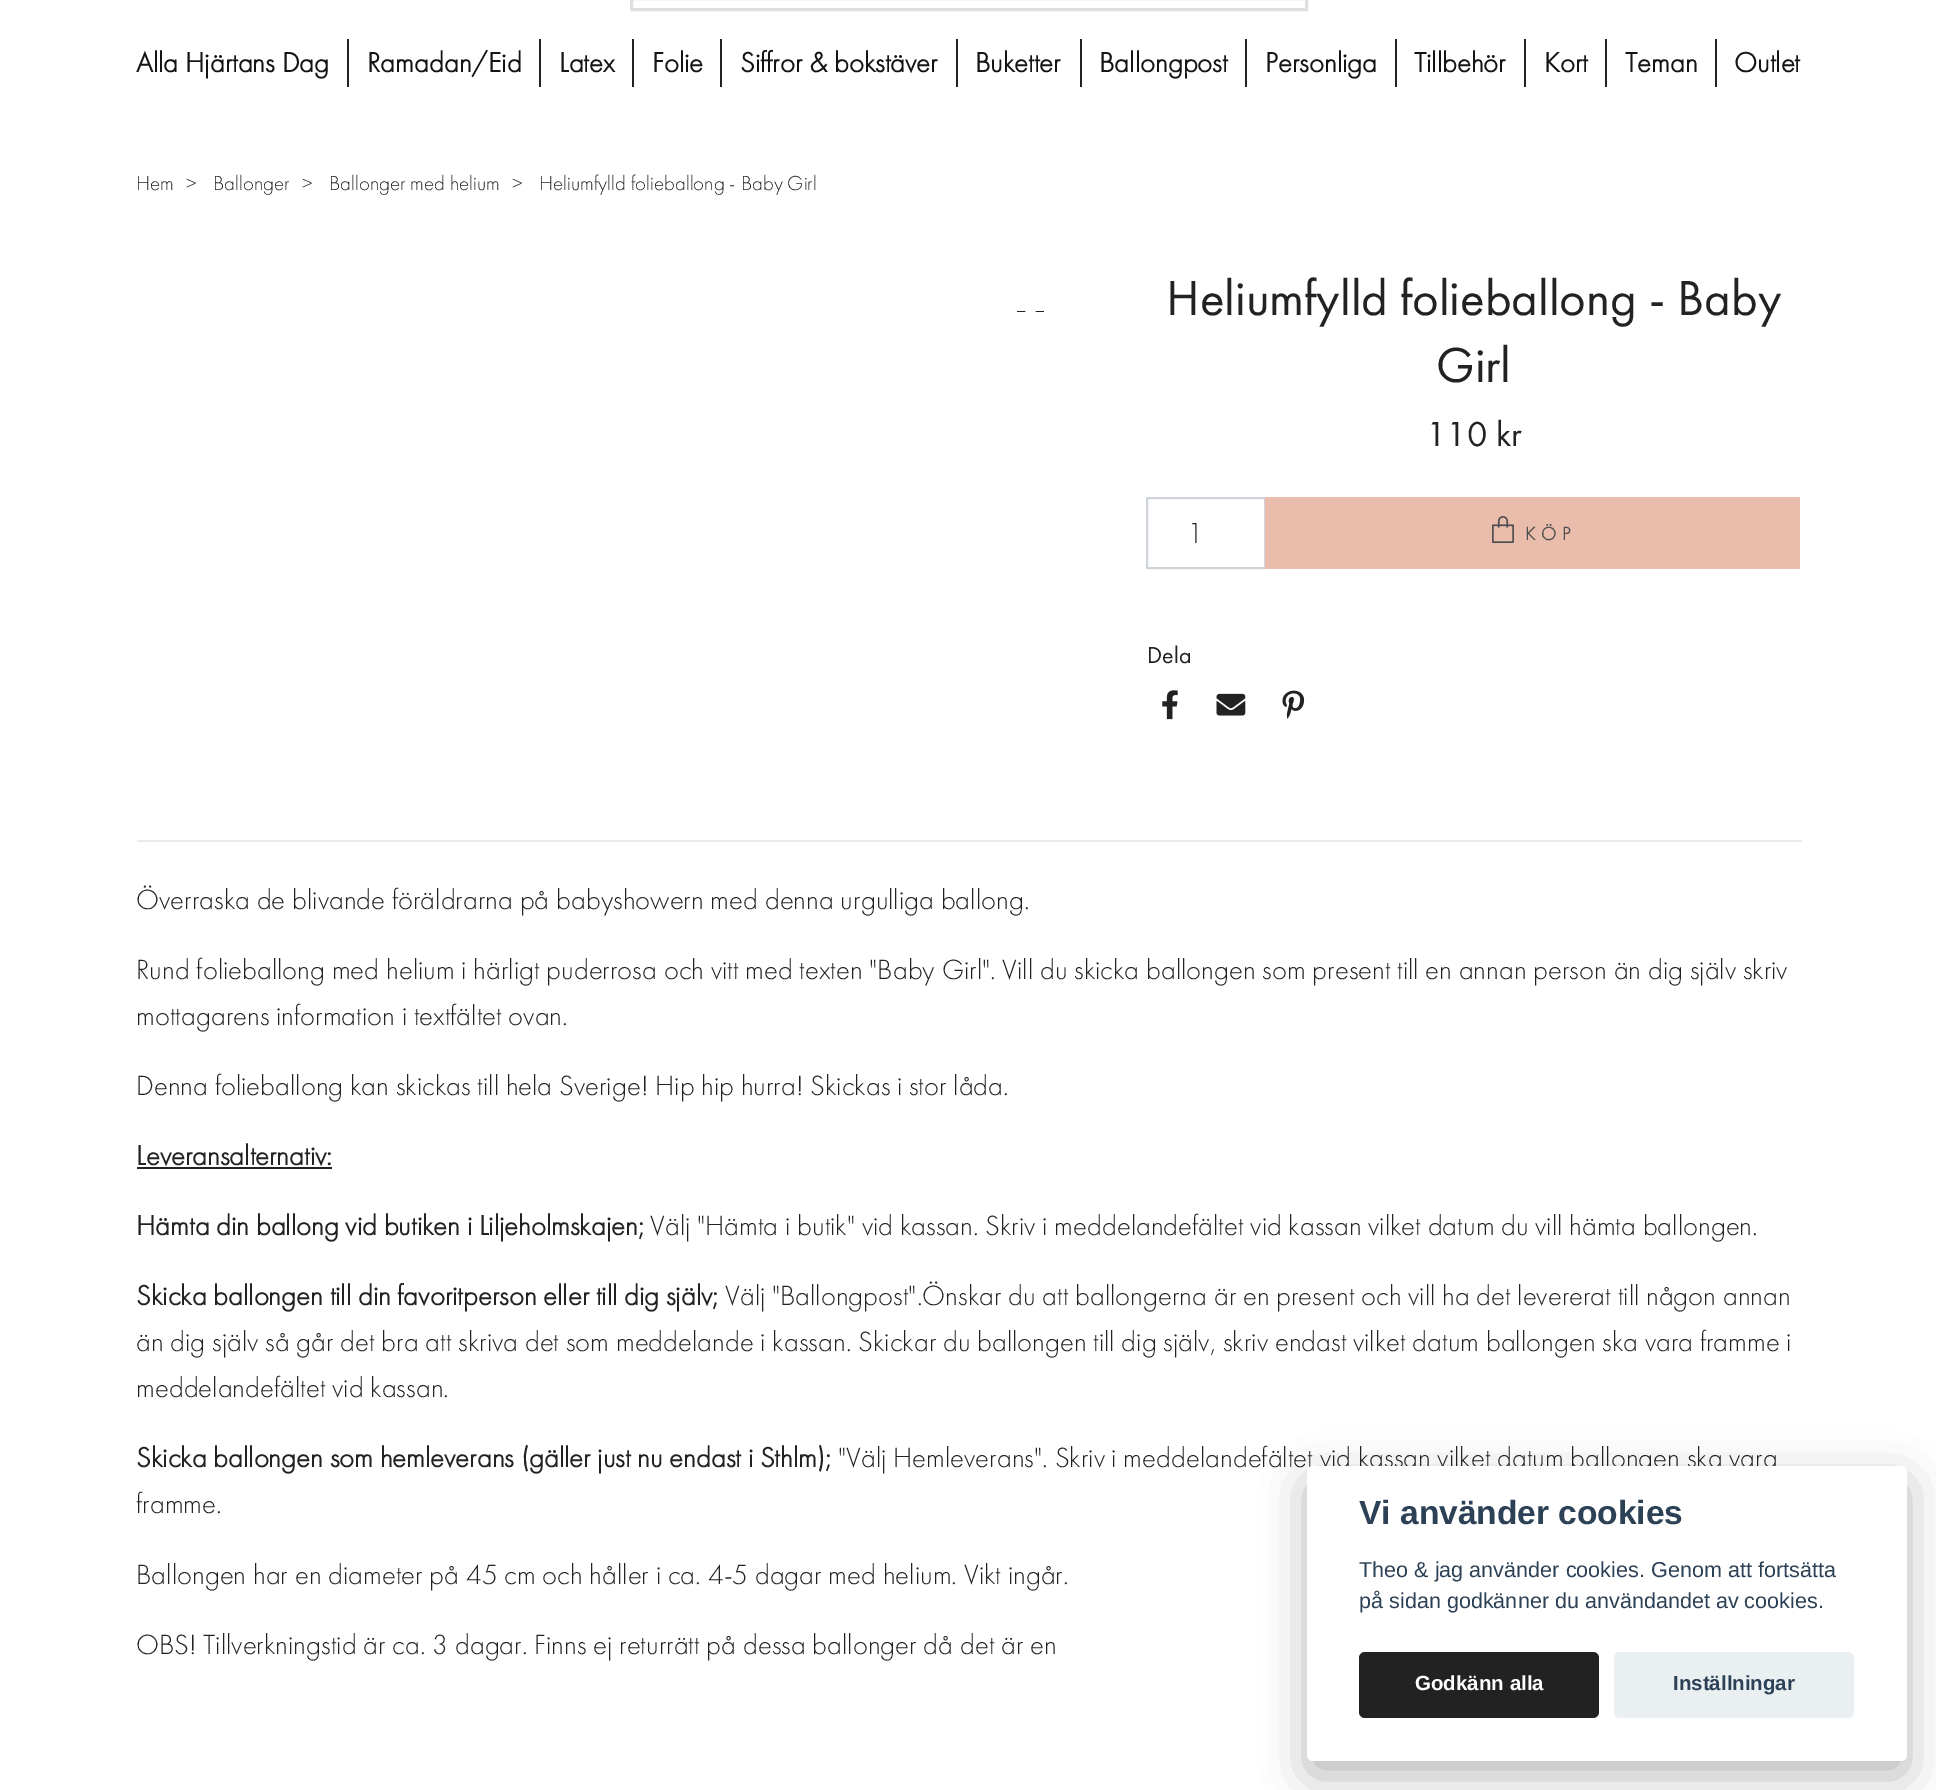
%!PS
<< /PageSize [1936 1790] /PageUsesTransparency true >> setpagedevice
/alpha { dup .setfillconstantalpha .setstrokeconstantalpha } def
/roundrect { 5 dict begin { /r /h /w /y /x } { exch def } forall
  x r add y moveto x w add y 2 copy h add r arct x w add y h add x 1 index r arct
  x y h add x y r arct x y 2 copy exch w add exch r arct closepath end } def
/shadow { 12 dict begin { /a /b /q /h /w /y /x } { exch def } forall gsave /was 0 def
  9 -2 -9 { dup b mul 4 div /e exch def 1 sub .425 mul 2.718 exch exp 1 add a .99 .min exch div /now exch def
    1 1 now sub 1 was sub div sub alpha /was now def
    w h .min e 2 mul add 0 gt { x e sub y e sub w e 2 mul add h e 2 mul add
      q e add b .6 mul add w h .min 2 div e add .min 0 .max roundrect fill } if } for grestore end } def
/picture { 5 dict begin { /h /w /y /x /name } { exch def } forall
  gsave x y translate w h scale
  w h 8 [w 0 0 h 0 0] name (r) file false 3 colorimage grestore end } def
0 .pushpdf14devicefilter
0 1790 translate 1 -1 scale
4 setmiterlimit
1 setgray
0 0 1936 1790 rectfill
0.875 setgray
3 setlinewidth
631.5 -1.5 675 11 rectstroke
0.133 setgray
347 39 2 48 rectfill
/FuturaPT-Bold [28.8 0 0 -28.8 0 0] selectfont
0.078 setgray
136 72 moveto (Alla Hjärtans Dag) show
0.133 setgray
539 39 2 48 rectfill
0.078 setgray
367 72 moveto (Ramadan/Eid) show
0.133 setgray
632 39 2 48 rectfill
0.078 setgray
559 72 moveto (Latex) show
0.133 setgray
720 39 2 48 rectfill
0.078 setgray
652 72 moveto (Folie) show
0.133 setgray
956 39 2 48 rectfill
0.078 setgray
740 72 moveto (Siffror & bokstäver) show
0.133 setgray
1080 39 2 48 rectfill
0.078 setgray
975 72 moveto (Buketter) show
0.133 setgray
1245 39 2 48 rectfill
0.078 setgray
1099 72 moveto (Ballongpost) show
0.133 setgray
1395 39 2 48 rectfill
0.078 setgray
1265 72 moveto (Personliga) show
0.133 setgray
1524 39 2 48 rectfill
0.078 setgray
1414 72 moveto (Tillbehör) show
0.133 setgray
1605 39 2 48 rectfill
0.078 setgray
1544 72 moveto (Kort) show
0.133 setgray
1715 39 2 48 rectfill
0.078 setgray
1625 72 moveto (Teman) show
1734 72 moveto (Outlet) show
/FuturaPT-Light [21 0 0 -21 0 0] selectfont
0.133 setgray
136 190 moveto (Hem) show
186 190 moveto (>) show
213 190 moveto (Ballonger) show
302 190 moveto (>) show
329 190 moveto (Ballonger med helium) show
512 190 moveto (>) show
539 190 moveto (Heliumfylld folieballong - Baby Girl) show
(img1.rgb) 1017 311 27 1 picture
/FuturaPT-Regular [51 0 0 -51 0 0] selectfont
1166 315 moveto (Heliumfylld folieballong - Baby) show
1436 382 moveto (Girl) show
/FuturaPT-Regular [36 0 0 -36 0 0] selectfont
1426 446 moveto (110 kr) show
0.808 0.831 0.855 setrgbcolor
2 setlinewidth
1147 498 118 70 rectstroke
/FuturaPT-Light [30 0 0 -30 0 0] selectfont
0.133 setgray
1187 543 moveto (1) show
0.918 0.737 0.675 setrgbcolor
1265 497 535 72 rectfill
(img2.rgb) 1492 516 22 27 picture
/FuturaPT-Bold [19 0 0 -19 0 0] selectfont
0.31 setgray
1525 540 moveto 6 0 (KÖP) ashow
/FuturaPT-Regular [24 0 0 -24 0 0] selectfont
0.133 setgray
1147 663 moveto (Dela) show
(img3.rgb) 1162 690 16 30 picture
(img4.rgb) 1216 693 30 23 picture
(img5.rgb) 1282 690 23 29 picture
0.914 setgray
137 840 1665 2 rectfill
/FuturaPT-Light [28.8 0 0 -28.8 0 0] selectfont
0.133 setgray
136 909 moveto (Överraska de blivande föräldrarna på babyshowern med denna urgulliga ballong.) show
136 979 moveto (Rund folieballong med helium i härligt puderrosa och vitt med texten "Baby Girl". Vill du skicka ballongen som present till en annan person än dig själv skriv) show
136 1025 moveto (mottagarens information i textfältet ovan.) show
136 1095 moveto (Denna folieballong kan skickas till hela Sverige! Hip hip hurra! Skickas i stor låda.) show
/FuturaPT-Bold [28.8 0 0 -28.8 0 0] selectfont
136 1165 moveto (Leveransalternativ:) show
137 1167 195 2 rectfill
136 1235 moveto (Hämta din ballong vid butiken i Liljeholmskajen;) show
/FuturaPT-Light [28.8 0 0 -28.8 0 0] selectfont
650 1235 moveto (Välj "Hämta i butik" vid kassan. Skriv i meddelandefältet vid kassan vilket datum du vill hämta ballongen.) show
/FuturaPT-Bold [28.8 0 0 -28.8 0 0] selectfont
136 1305 moveto (Skicka ballongen till din favoritperson eller till dig själv;) show
/FuturaPT-Light [28.8 0 0 -28.8 0 0] selectfont
725 1305 moveto (Välj "Ballongpost".Önskar du att ballongerna är en present och vill ha det levererat till någon annan) show
136 1351 moveto (än dig själv så går det bra att skriva det som meddelande i kassan. Skickar du ballongen till dig själv, skriv endast vilket datum ballongen ska vara framme i) show
136 1397 moveto (meddelandefältet vid kassan.) show
/FuturaPT-Bold [28.8 0 0 -28.8 0 0] selectfont
136 1467 moveto (Skicka ballongen som hemleverans \(gäller just nu endast i Sthlm\);) show
/FuturaPT-Light [28.8 0 0 -28.8 0 0] selectfont
838 1467 moveto ("Välj Hemleverans". Skriv i meddelandefältet vid kassan vilket datum ballongen ska vara) show
136 1513 moveto (framme.) show
136 1584 moveto (Ballongen har en diameter på 45 cm och håller i ca. 4-5 dagar med helium. Vikt ingår.) show
136 1654 moveto (OBS! Tillverkningstid är ca. 3 dagar. Finns ej returrätt på dessa ballonger då det är en) show
0.008 0.008 0.012 setrgbcolor
1307 1481 600 295 6 22.5 0.28 shadow
1 setgray
1307 1466 600 295 6 roundrect fill
/LiberationSans-Bold [33.5 0 0 -33.5 0 0] selectfont
0.176 0.255 0.337 setrgbcolor
1359 1524 moveto (Vi använder cookies) show
/LiberationSans-Regular [21.6 0 0 -21.6 0 0] selectfont
1359 1577 moveto (Theo & jag använder cookies. Genom att fortsätta) show
1359 1608 moveto (på sidan godkänner du användandet av cookies.) show
0.133 setgray
1359 1652 240 66 6 roundrect fill
/LiberationSans-Bold [20.5 0 0 -20.5 0 0] selectfont
1 setgray
1415 1690 moveto (Godkänn alla) show
0.918 0.937 0.949 setrgbcolor
1614 1652 240 66 6 roundrect fill
0.176 0.255 0.337 setrgbcolor
1673 1690 moveto (Inställningar) show
.poppdf14devicefilter showpage
